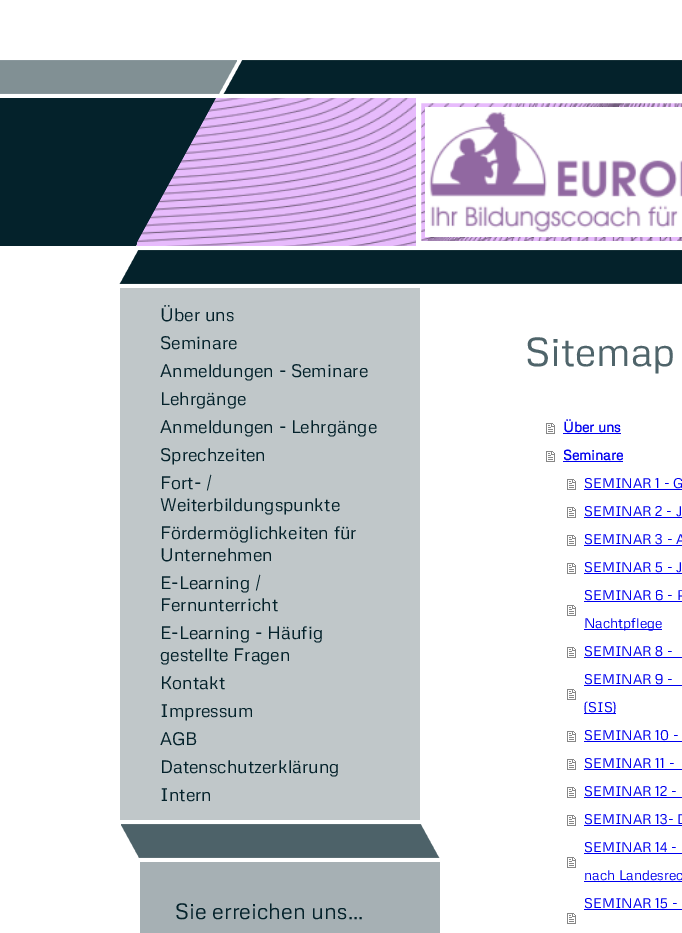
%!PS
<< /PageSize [682 933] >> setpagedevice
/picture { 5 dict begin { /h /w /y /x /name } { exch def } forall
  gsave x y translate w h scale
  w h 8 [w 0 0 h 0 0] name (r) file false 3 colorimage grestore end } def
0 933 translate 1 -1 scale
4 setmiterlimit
1 setgray
0 0 682 933 rectfill
(img1.rgb) 0 60 682 224 picture
0.906 0.733 0.988 setrgbcolor
137 98 545 148 rectfill
(img2.rgb) 137 98 545 148 picture
1 setgray
5 setlinewidth
418.5 100.5 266 143 rectstroke
(img3.rgb) 425 107 257 130 picture
(img4.rgb) 137 98 79 144 picture
(img5.rgb) 121 824 319 34 picture
0.753 0.78 0.788 setrgbcolor
120 288 300 532 rectfill
/Metrophobic-Regular [18 0 0 -18 0 0] selectfont
0.016 0.133 0.169 setrgbcolor
160 321 moveto (Über uns) show
160 349 moveto (Seminare) show
160 377 moveto (Anmeldungen - Seminare) show
160 405 moveto (Lehrgänge) show
160 433 moveto (Anmeldungen - Lehrgänge) show
160 461 moveto (Sprechzeiten) show
160 489 moveto (Fort- /) show
160 511 moveto (Weiterbildungspunkte) show
160 539 moveto (Fördermöglichkeiten für) show
160 561 moveto (Unternehmen) show
160 589 moveto (E-Learning /) show
160 611 moveto (Fernunterricht) show
160 639 moveto (E-Learning - Häufig) show
160 661 moveto (gestellte Fragen) show
160 689 moveto (Kontakt) show
160 717 moveto (Impressum) show
160 745 moveto (AGB) show
160 773 moveto (Datenschutzerklärung) show
160 801 moveto (Intern) show
0.651 0.69 0.706 setrgbcolor
140 862 300 71 rectfill
/Metrophobic-Regular [22 0 0 -22 0 0] selectfont
0.016 0.133 0.169 setrgbcolor
175 919 moveto (Sie erreichen uns...) show
/Metrophobic-Regular [40 0 0 -40 0 0] selectfont
0.31 0.392 0.416 setrgbcolor
525 366 moveto (Sitemap) show
(img6.rgb) 546 423 9 11 picture
/Metrophobic-Bold [14 0 0 -14 0 0] selectfont
0 0 0.933 setrgbcolor
563 432 moveto (Über uns) show
563 433 58 1 rectfill
(img6.rgb) 546 451 9 11 picture
563 460 moveto (Seminare) show
563 461 60 1 rectfill
(img6.rgb) 567 479 9 11 picture
/Metrophobic-Regular [14 0 0 -14 0 0] selectfont
584 488 moveto (SEMINAR 1 - G) show
584 489 98 1 rectfill
(img6.rgb) 567 507 9 11 picture
584 516 moveto (SEMINAR 2 - J) show
584 517 98 1 rectfill
(img6.rgb) 567 535 9 11 picture
584 544 moveto (SEMINAR 3 - A) show
584 545 98 1 rectfill
(img6.rgb) 567 563 9 11 picture
584 572 moveto (SEMINAR 5 - J) show
584 573 98 1 rectfill
(img6.rgb) 567 605 9 11 picture
584 600 moveto (SEMINAR 6 - P) show
584 601 98 1 rectfill
584 629 78 1 rectfill
584 628 moveto (Nachtpflege) show
(img6.rgb) 567 647 9 11 picture
584 656 moveto (SEMINAR 8 -) show
584 657 98 1 rectfill
(img6.rgb) 567 689 9 11 picture
584 684 moveto (SEMINAR 9 -) show
584 685 98 1 rectfill
584 713 32 1 rectfill
584 712 moveto (\(SIS\)) show
(img6.rgb) 567 731 9 11 picture
584 740 moveto (SEMINAR 10 -) show
584 741 98 1 rectfill
(img6.rgb) 567 759 9 11 picture
584 768 moveto (SEMINAR 11 -) show
584 769 98 1 rectfill
(img6.rgb) 567 787 9 11 picture
584 796 moveto (SEMINAR 12 -) show
584 797 98 1 rectfill
(img6.rgb) 567 815 9 11 picture
584 824 moveto (SEMINAR 13- D) show
584 825 98 1 rectfill
(img6.rgb) 567 857 9 11 picture
584 852 moveto (SEMINAR 14 -) show
584 853 98 1 rectfill
584 880 moveto (nach Landesrec) show
584 881 98 1 rectfill
(img6.rgb) 567 913 9 11 picture
584 908 moveto (SEMINAR 15 -) show
584 909 98 1 rectfill
showpage
